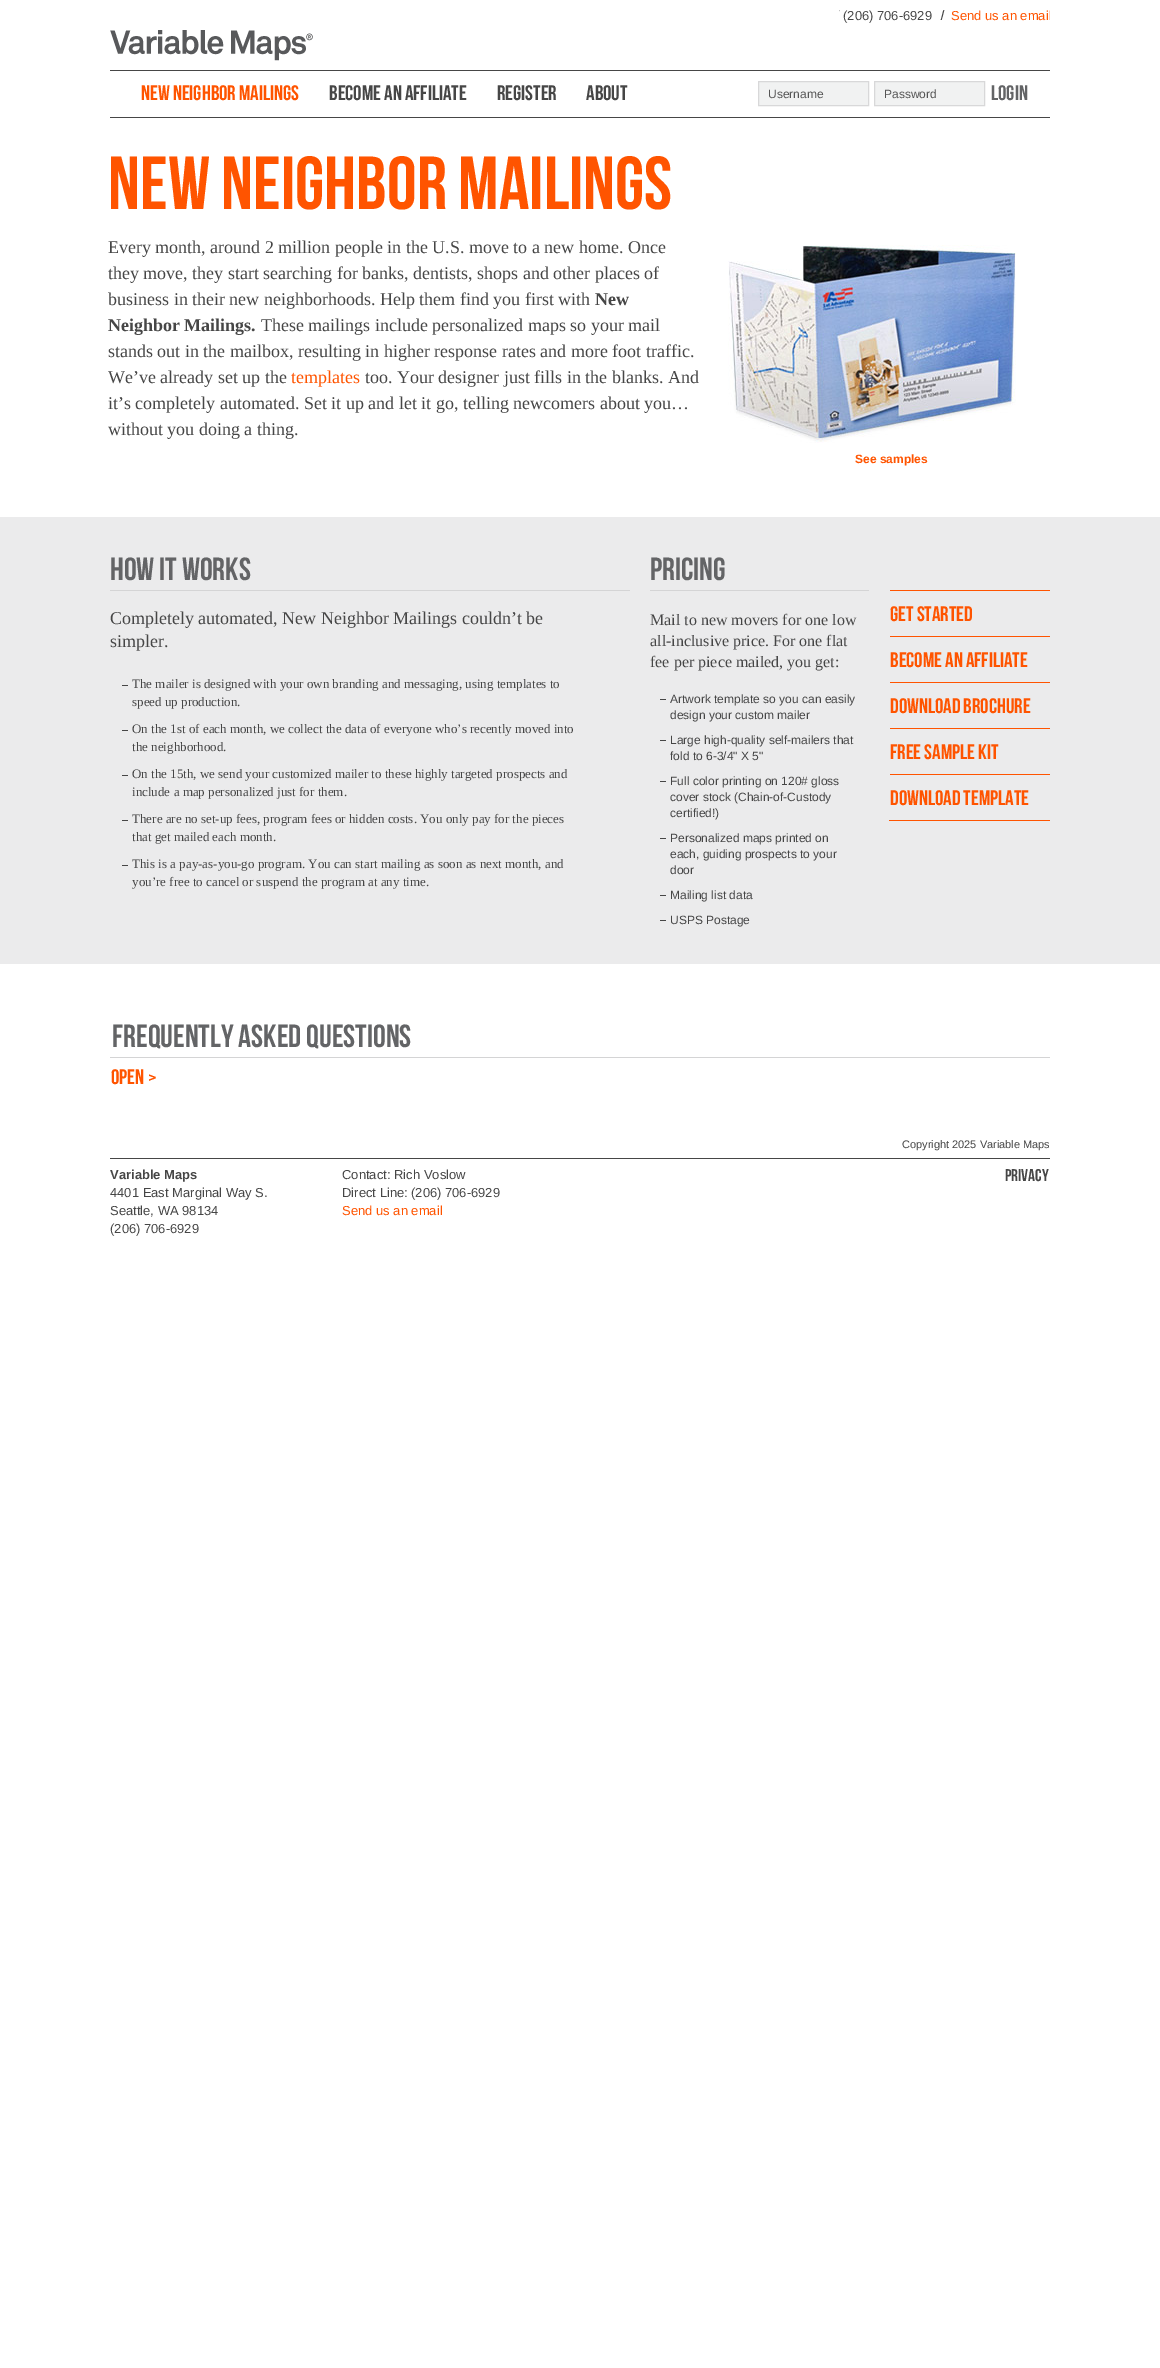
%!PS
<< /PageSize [1160 2368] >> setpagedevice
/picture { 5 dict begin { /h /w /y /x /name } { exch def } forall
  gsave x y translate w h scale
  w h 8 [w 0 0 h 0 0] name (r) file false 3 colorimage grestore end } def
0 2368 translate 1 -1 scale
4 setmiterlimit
1 setgray
0 0 1160 2368 rectfill
(img1.rgb) 839 10 1 2 picture
/LiberationSans-Regular [13 0 0 -13 0 0] selectfont
0.275 setgray
843 20 moveto (\(206\) 706-6929) show
(img2.rgb) 940 10 5 10 picture
gsave
839 6 211 19 rectclip
1 0.329 0 setrgbcolor
951 20 moveto (Send us an email) show
grestore
(img3.rgb) 110 30 203 31 picture
110 70 940 1 rectfill
110 117 940 1 rectfill
/BebasNeue-Regular [21 0 0 -21 0 0] selectfont
1 0.329 0 setrgbcolor
141 100 moveto (NEW NEIGHBOR MAILINGS) show
0.275 setgray
329 100 moveto (BECOME AN AFFILIATE) show
497 100 moveto (REGISTER) show
586 100 moveto (ABOUT) show
0.945 0.949 0.949 setrgbcolor
newpath 758.5 81.5 moveto 868.5 81.5 lineto 868.5 105.5 lineto 758.5 105.5 lineto closepath gsave fill grestore
0.847 0.847 0.851 setrgbcolor
stroke
/LiberationSans-Regular [12 0 0 -12 0 0] selectfont
0.333 setgray
768 98 moveto (Username) show
0.945 0.949 0.949 setrgbcolor
newpath 874.5 81.5 moveto 984.5 81.5 lineto 984.5 105.5 lineto 874.5 105.5 lineto closepath gsave fill grestore
0.847 0.847 0.851 setrgbcolor
stroke
0.333 setgray
884 98 moveto (Password) show
/BebasNeue-Regular [21 0 0 -21 0 0] selectfont
0.388 0.392 0.4 setrgbcolor
991 100 moveto (Login) show
/BebasNeue-Regular [75 0 0 -75 0 0] selectfont
1 0.329 0 setrgbcolor
108 209 moveto (NEW NEIGHBOR MAILINGS) show
/LiberationSerif-Regular [18 0 0 -18 0 0] selectfont
0.275 setgray
108 253 moveto (Every month, around 2 million people in the U.S. move to a new home. Once) show
108 279 moveto (they move, they start searching for banks, dentists, shops and other places of) show
108 305 moveto (business in their new neighborhoods. Help them find you first with) show
/LiberationSerif-Bold [18 0 0 -18 0 0] selectfont
595 305 moveto (New) show
108 331 moveto (Neighbor Mailings.) show
/LiberationSerif-Regular [18 0 0 -18 0 0] selectfont
261 331 moveto (These mailings include personalized maps so your mail) show
108 357 moveto (stands out in the mailbox, resulting in higher response rates and more foot traffic.) show
108 383 moveto (We’ve already set up the) show
1 0.329 0 setrgbcolor
291 383 moveto (templates) show
0.275 setgray
365 383 moveto (too. Your designer just fills in the blanks. And) show
108 409 moveto (it’s completely automated. Set it up and let it go, telling newcomers about you…) show
108 435 moveto (without you doing a thing.) show
(img4.rgb) 728 245 288 198 picture
/LiberationSans-Bold [12 0 0 -12 0 0] selectfont
1 0.329 0 setrgbcolor
855 463 moveto (See samples) show
0.922 0.922 0.925 setrgbcolor
0 517 1160 447 rectfill
0.831 0.831 0.835 setrgbcolor
110 590 520 1 rectfill
/BebasNeue-Regular [32 0 0 -32 0 0] selectfont
0.388 0.392 0.4 setrgbcolor
110 580 moveto (HOW IT WORKS) show
/LiberationSerif-Regular [18 0 0 -18 0 0] selectfont
0.275 setgray
110 624 moveto (Completely automated, New Neighbor Mailings couldn’t be) show
110 647 moveto (simpler.) show
122 685 6 1 rectfill
/LiberationSerif-Regular [13 0 0 -13 0 0] selectfont
132 688 moveto (The mailer is designed with your own branding and messaging, using templates to) show
132 706 moveto (speed up production.) show
122 730 6 1 rectfill
132 733 moveto (On the 1st of each month, we collect the data of everyone who’s recently moved into) show
132 751 moveto (the neighborhood.) show
122 775 6 1 rectfill
132 778 moveto (On the 15th, we send your customized mailer to these highly targeted prospects and) show
132 796 moveto (include a map personalized just for them.) show
122 820 6 1 rectfill
132 823 moveto (There are no set-up fees, program fees or hidden costs. You only pay for the pieces) show
132 841 moveto (that get mailed each month.) show
122 865 6 1 rectfill
132 868 moveto (This is a pay-as-you-go program. You can start mailing as soon as next month, and) show
132 886 moveto (you’re free to cancel or suspend the program at any time.) show
0.831 0.831 0.835 setrgbcolor
650 590 219 1 rectfill
/BebasNeue-Regular [32 0 0 -32 0 0] selectfont
0.388 0.392 0.4 setrgbcolor
650 580 moveto (PRICING) show
/LiberationSerif-Regular [16 0 0 -16 0 0] selectfont
0.275 setgray
650 625 moveto (Mail to new movers for one low) show
650 646 moveto (all-inclusive price. For one flat) show
650 667 moveto (fee per piece mailed, you get:) show
660 699 6 1 rectfill
/LiberationSans-Regular [12 0 0 -12 0 0] selectfont
670 703 moveto (Artwork template so you can easily) show
670 719 moveto (design your custom mailer) show
660 740 6 1 rectfill
670 744 moveto (Large high-quality self-mailers that) show
670 760 moveto (fold to 6-3/4" X 5") show
660 781 6 1 rectfill
670 785 moveto (Full color printing on 120# gloss) show
670 801 moveto (cover stock \(Chain-of-Custody) show
670 817 moveto (certified!\)) show
660 838 6 1 rectfill
670 842 moveto (Personalized maps printed on) show
670 858 moveto (each, guiding prospects to your) show
670 874 moveto (door) show
660 895 6 1 rectfill
670 899 moveto (Mailing list data) show
660 920 6 1 rectfill
670 924 moveto (USPS Postage) show
1 0.329 0 setrgbcolor
889 820 161 1 rectfill
890 590 160 1 rectfill
/BebasNeue-Regular [21 0 0 -21 0 0] selectfont
890 621 moveto (GET STARTED) show
890 636 160 1 rectfill
890 667 moveto (BECOME AN AFFILIATE) show
890 682 160 1 rectfill
890 713 moveto (DOWNLOAD BROCHURE) show
890 728 160 1 rectfill
890 759 moveto (FREE SAMPLE KIT) show
890 774 160 1 rectfill
890 805 moveto (DOWNLOAD TEMPLATE) show
0.831 0.831 0.835 setrgbcolor
110 1057 940 1 rectfill
/BebasNeue-Regular [32 0 0 -32 0 0] selectfont
0.388 0.392 0.4 setrgbcolor
112 1047 moveto (FREQUENTLY ASKED QUESTIONS) show
/BebasNeue-Regular [21 0 0 -21 0 0] selectfont
1 0.329 0 setrgbcolor
111 1084 moveto (OPEN) show
(img5.rgb) 149 1074 7 7 picture
0.275 setgray
110 1158 940 1 rectfill
/LiberationSans-Regular [11 0 0 -11 0 0] selectfont
902 1148 moveto (Copyright 2025 Variable Maps) show
/LiberationSans-Bold [13 0 0 -13 0 0] selectfont
110 1179 moveto (Variable Maps) show
/LiberationSans-Regular [13 0 0 -13 0 0] selectfont
110 1197 moveto (4401 East Marginal Way S.) show
110 1215 moveto (Seattle, WA 98134) show
110 1233 moveto (\(206\) 706-6929) show
342 1179 moveto (Contact:) show
394 1179 moveto (Rich Voslow) show
342 1197 moveto (Direct Line:) show
411 1197 moveto (\(206\) 706-6929) show
1 0.329 0 setrgbcolor
342 1215 moveto (Send us an email) show
/BebasNeue-Regular [17 0 0 -17 0 0] selectfont
0.275 setgray
1005 1181 moveto (Privacy) show
showpage
